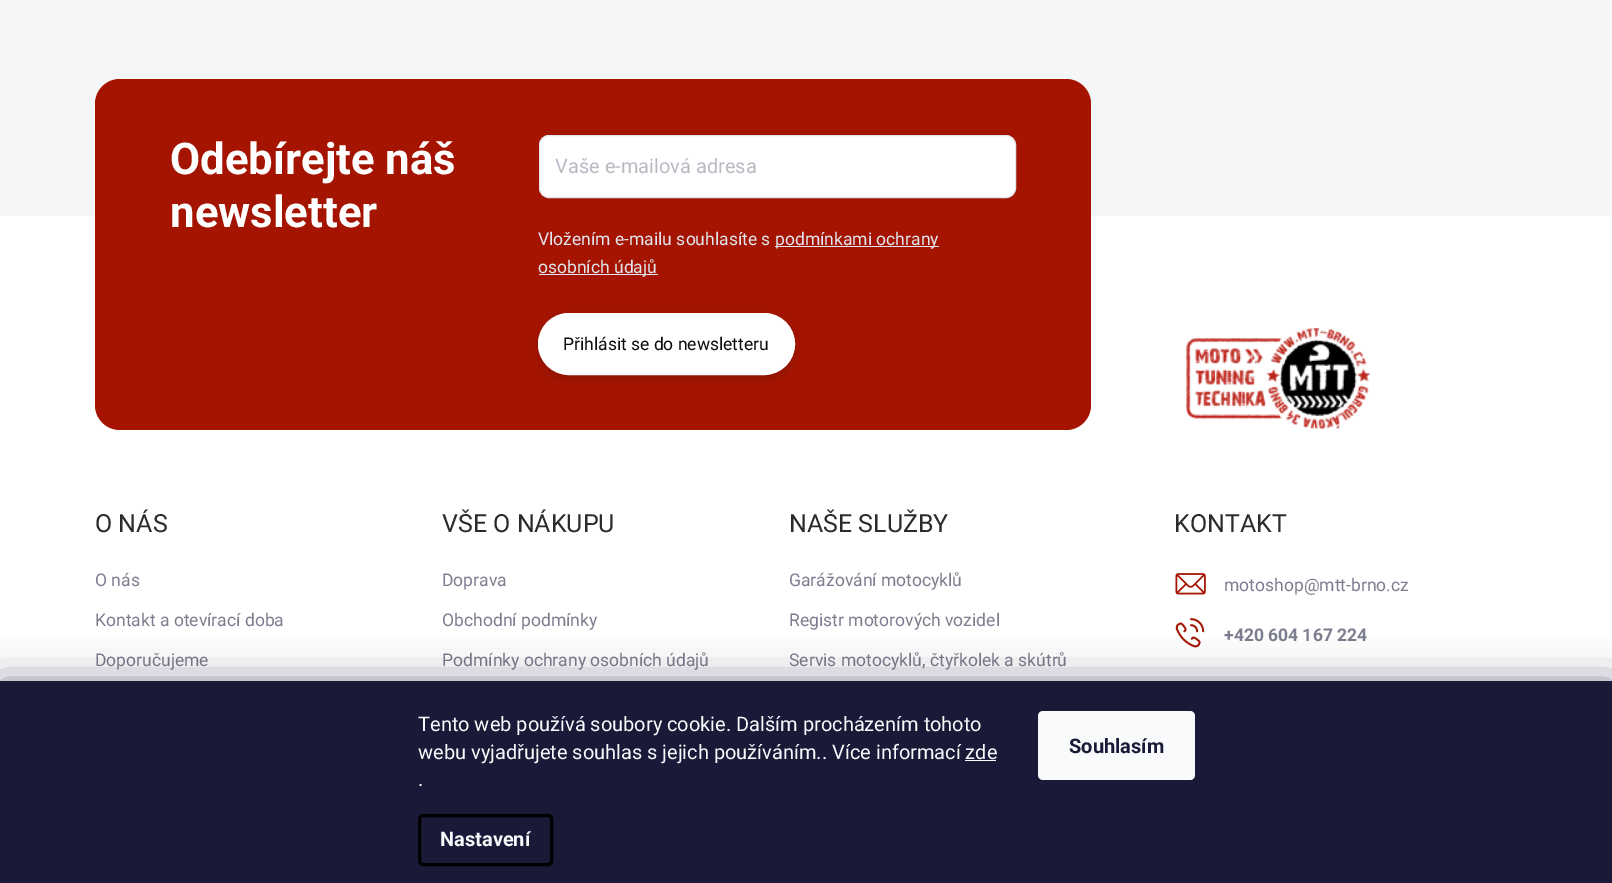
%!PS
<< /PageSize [1612 883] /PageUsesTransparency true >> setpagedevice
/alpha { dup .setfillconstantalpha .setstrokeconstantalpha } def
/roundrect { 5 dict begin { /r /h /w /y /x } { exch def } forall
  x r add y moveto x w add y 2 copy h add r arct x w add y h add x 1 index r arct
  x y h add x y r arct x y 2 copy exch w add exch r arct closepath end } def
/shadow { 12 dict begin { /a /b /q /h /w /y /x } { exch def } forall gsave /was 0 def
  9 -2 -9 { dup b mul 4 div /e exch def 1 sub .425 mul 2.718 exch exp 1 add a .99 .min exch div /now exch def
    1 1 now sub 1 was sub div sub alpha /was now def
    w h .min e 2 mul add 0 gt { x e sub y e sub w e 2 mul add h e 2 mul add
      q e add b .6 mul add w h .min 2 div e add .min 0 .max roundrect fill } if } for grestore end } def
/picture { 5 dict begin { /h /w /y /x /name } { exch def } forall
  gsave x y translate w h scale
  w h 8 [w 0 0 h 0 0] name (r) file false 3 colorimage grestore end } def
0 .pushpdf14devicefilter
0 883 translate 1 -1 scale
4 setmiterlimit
0.961 0.965 0.973 setrgbcolor
0 0 1612 883 rectfill
1 setgray
0 216 1612 465 rectfill
0.643 0.078 0.004 setrgbcolor
95 79 996 351 25 roundrect fill
/Roboto-Bold [43.75 0 0 -43.75 0 0] selectfont
1 setgray
170 174 moveto (Odebírejte náš) show
170 227 moveto (newsletter) show
539.5 135.5 476 62 9.5 roundrect gsave fill grestore
0.878 0.898 0.933 setrgbcolor
stroke
/Roboto-Regular [20 0 0 -20 0 0] selectfont
0.725 0.729 0.769 setrgbcolor
555 173 moveto (Vaše e-mailová adresa) show
/Roboto-Regular [17.5 0 0 -17.5 0 0] selectfont
0.878 0.898 0.933 setrgbcolor
538 245 moveto (Vložením e-mailu souhlasíte s) show
775 246 164 1 rectfill
775 245 moveto (podmínkami ochrany) show
539 274 119 1 rectfill
538 273 moveto (osobních údajů) show
0 setgray
538 316 257 63 31.5 4 0.12 shadow
1 setgray
538.5 313.5 256 61 30.5 roundrect gsave fill grestore
stroke
0.047 setgray
563 350 moveto (Přihlásit se do newsletteru) show
(img1.rgb) 1186 328 184 102 picture
/Roboto-Regular [25 0 0 -25 0 0] selectfont
0.169 setgray
95 532 moveto (O NÁS) show
/Roboto-Regular [17.5 0 0 -17.5 0 0] selectfont
0.486 0.494 0.561 setrgbcolor
95 586 moveto (O nás) show
95 626 moveto (Kontakt a otevírací doba) show
95 666 moveto (Doporučujeme) show
/Roboto-Regular [25 0 0 -25 0 0] selectfont
0.169 setgray
442 532 moveto (VŠE O NÁKUPU) show
/Roboto-Regular [17.5 0 0 -17.5 0 0] selectfont
0.486 0.494 0.561 setrgbcolor
442 586 moveto (Doprava) show
442 626 moveto (Obchodní podmínky) show
442 666 moveto (Podmínky ochrany osobních údajů) show
/Roboto-Regular [25 0 0 -25 0 0] selectfont
0.169 setgray
789 532 moveto (NAŠE SLUŽBY) show
/Roboto-Regular [17.5 0 0 -17.5 0 0] selectfont
0.486 0.494 0.561 setrgbcolor
789 586 moveto (Garážování motocyklů) show
789 626 moveto (Registr motorových vozidel) show
789 666 moveto (Servis motocyklů, čtyřkolek a skútrů) show
/Roboto-Regular [25 0 0 -25 0 0] selectfont
0.169 setgray
1174 532 moveto (KONTAKT) show
(img2.rgb) 1175 573 31 22 picture
/Roboto-Regular [17.5 0 0 -17.5 0 0] selectfont
0.486 0.494 0.561 setrgbcolor
1224 591 moveto (motoshop@mtt-brno.cz) show
(img3.rgb) 1175 618 30 30 picture
/Roboto-Bold [17.5 0 0 -17.5 0 0] selectfont
1224 641 moveto (+420 604 167 224) show
0.106 0.098 0.224 setrgbcolor
0 681 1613 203 0 19 0.5 shadow
0.102 0.098 0.216 setrgbcolor
0 681 1612 202 rectfill
/Roboto-Regular [20 0 0 -20 0 0] selectfont
0.973 0.98 0.984 setrgbcolor
418 731 moveto (Tento web používá soubory cookie. Dalším procházením tohoto) show
418 759 moveto (webu vyjadřujete souhlas s jejich používáním.. Více informací zde) show
965 760 31 1 rectfill
418 786 moveto (.) show
0 setgray
3 setlinewidth
419.5 815.5 132 49 3.5 roundrect stroke
/Roboto-Bold [20 0 0 -20 0 0] selectfont
0.973 0.98 0.984 setrgbcolor
440 846 moveto (Nastavení) show
1038 711 157 69 5 roundrect fill
0.102 0.098 0.216 setrgbcolor
1069 753 moveto (Souhlasím) show
.poppdf14devicefilter showpage
